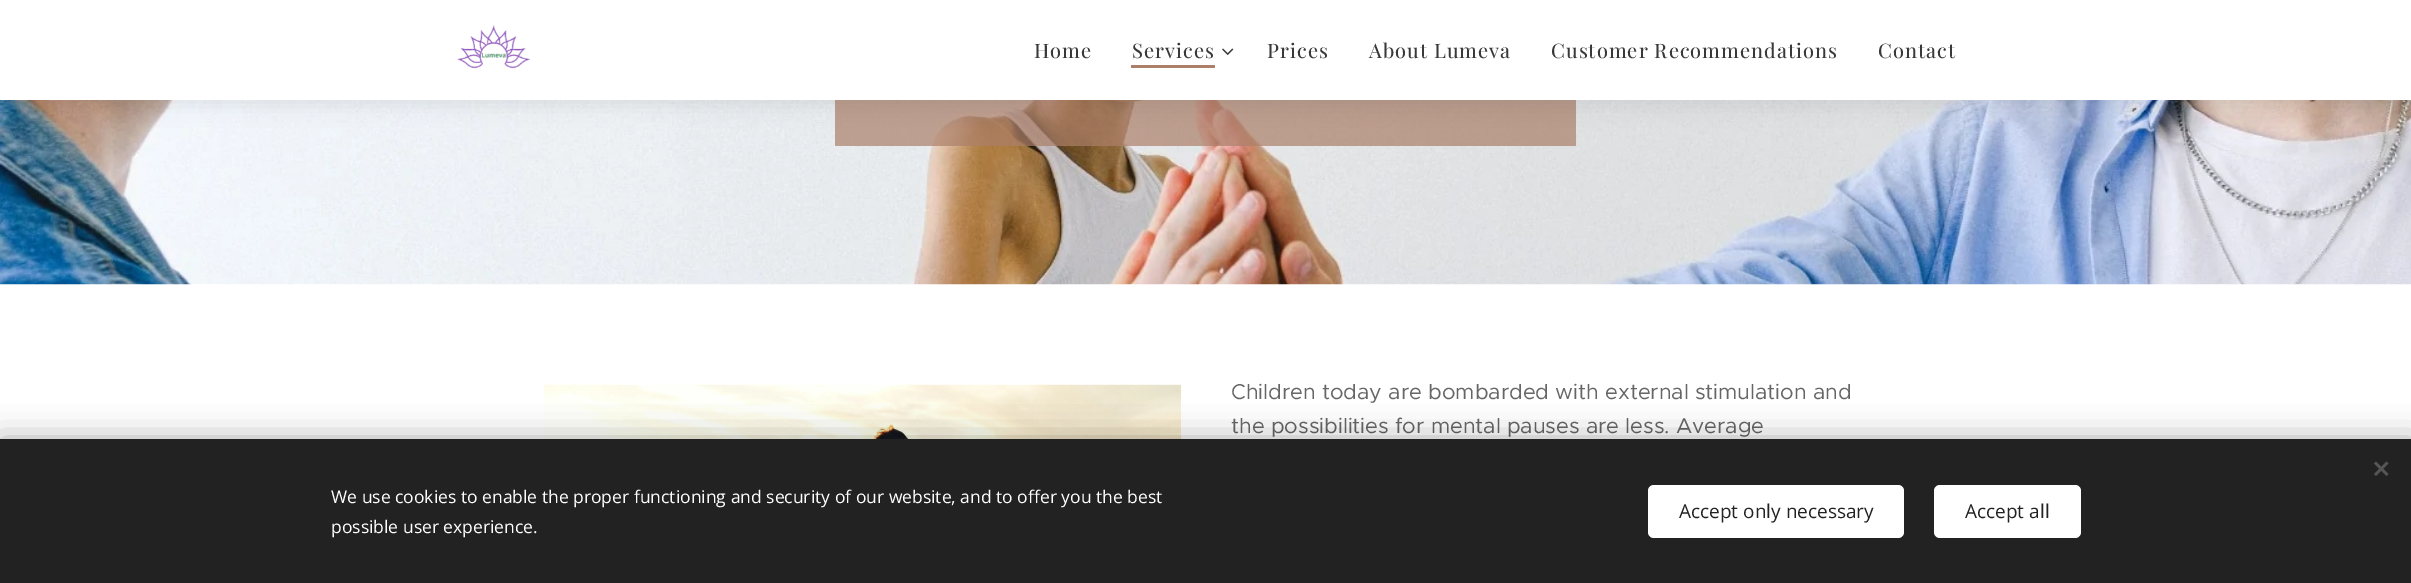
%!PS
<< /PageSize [2411 583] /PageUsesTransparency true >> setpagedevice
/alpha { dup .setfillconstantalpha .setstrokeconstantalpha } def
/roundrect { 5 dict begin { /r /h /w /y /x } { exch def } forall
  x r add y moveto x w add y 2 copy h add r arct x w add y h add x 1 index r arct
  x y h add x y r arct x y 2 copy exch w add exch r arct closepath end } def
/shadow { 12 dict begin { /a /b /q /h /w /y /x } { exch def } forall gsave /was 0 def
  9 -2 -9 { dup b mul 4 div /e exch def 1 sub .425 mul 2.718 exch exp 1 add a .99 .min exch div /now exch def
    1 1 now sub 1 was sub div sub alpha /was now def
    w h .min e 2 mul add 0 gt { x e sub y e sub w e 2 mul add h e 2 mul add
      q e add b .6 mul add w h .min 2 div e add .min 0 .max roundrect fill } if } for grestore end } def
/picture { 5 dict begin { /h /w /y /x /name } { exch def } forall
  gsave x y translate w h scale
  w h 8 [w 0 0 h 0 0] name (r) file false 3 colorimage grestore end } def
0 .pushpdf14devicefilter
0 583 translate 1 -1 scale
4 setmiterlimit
1 setgray
0 0 2411 583 rectfill
(img3.rgb) 0 100 2411 185 picture
0.7 alpha
0.671 0.498 0.412 setrgbcolor
835 100 19 46 rectfill
854 100 704 46 rectfill
1558 100 18 46 rectfill
1 alpha
0 setgray
0 6 2411 100 0 9.5 0.07 shadow
1 setgray
0 0 2411 100 rectfill
(img1.rgb) 457 25 73 44 picture
/PlayfairDisplay-Regular [20 0 0 -20 0 0] selectfont
0.224 setgray
1034 58 moveto 1 0 (Home) ashow
1132 58 moveto 1 0 (Services) ashow
0.671 0.498 0.412 setrgbcolor
1131 65 84 3 rectfill
(img2.rgb) 1222 48 12 7 picture
0.224 setgray
1267 58 moveto 1 0 (Prices) ashow
1369 58 moveto 1 0 (About Lumeva) ashow
1551 58 moveto 1 0 (Customer Recommendations) ashow
1878 58 moveto 1 0 (Contact) ashow
(img4.rgb) 543 384 639 55 picture
/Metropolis-Regular [21.5 0 0 -21.5 0 0] selectfont
0.4 setgray
1231 399 moveto (Children today are bombarded with external stimulation and) show
1231 433 moveto (the possibilities for mental pauses are less. Average) show
0 setgray
0 439 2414 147 0 15.5 0.33 shadow
0.133 setgray
0 439 2411 144 rectfill
0.333 setgray
newpath 2374 474 moveto 2386.5 461.5 lineto 2388.5 463.5 lineto 2376 476 lineto closepath fill
newpath 2376 461.5 moveto 2388.5 474 lineto 2386.5 476 lineto 2374 463.5 lineto closepath fill
/OpenSans-Regular [17.5 0 0 -17.5 0 0] selectfont
1 setgray
331 503 moveto (We use cookies to enable the proper functioning and security of our website, and to offer you the best) show
331 533 moveto (possible user experience.) show
1648 485 256 53 6 roundrect fill
/OpenSans-Regular [19 0 0 -19 0 0] selectfont
0.133 setgray
1679 518 moveto (Accept only necessary) show
1 setgray
1934 485 147 53 6 roundrect fill
0.133 setgray
1965 518 moveto (Accept all) show
.poppdf14devicefilter showpage
